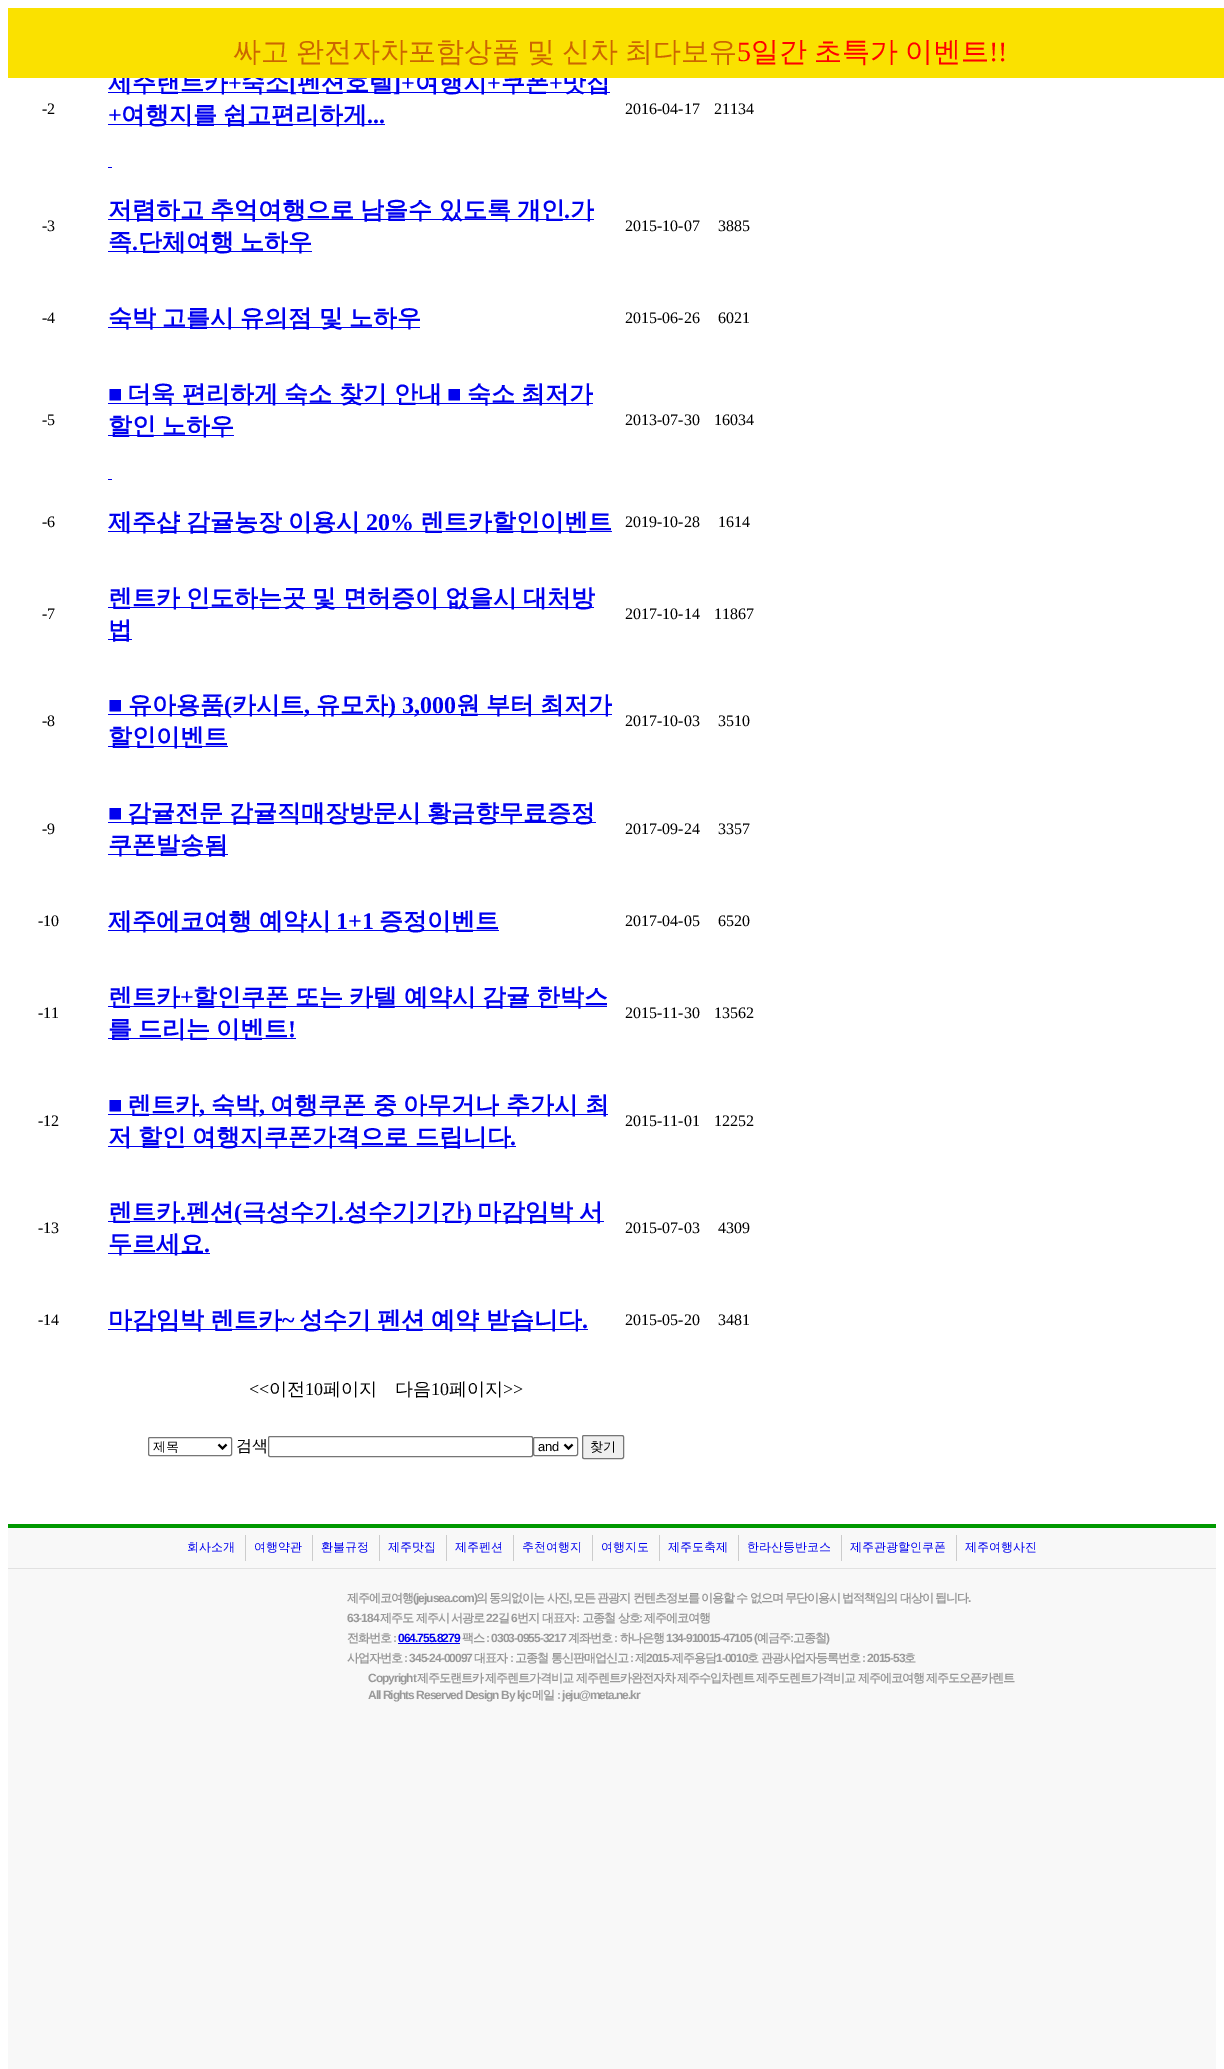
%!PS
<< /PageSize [1224 2069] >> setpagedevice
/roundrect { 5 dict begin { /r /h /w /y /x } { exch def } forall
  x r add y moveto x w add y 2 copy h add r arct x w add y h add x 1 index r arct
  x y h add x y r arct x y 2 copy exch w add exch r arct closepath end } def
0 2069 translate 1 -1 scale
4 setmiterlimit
1 setgray
0 0 1224 2069 rectfill
0 0 0.933 setrgbcolor
108 92 502 1 rectfill
/WenQuanYiZenHei-Bold [24 0 0 -24 0 0] selectfont
108 91 moveto (제주랜트카) show
/LiberationSerif-Bold [24 0 0 -24 0 0] selectfont
228 91 moveto (+) show
/WenQuanYiZenHei-Bold [24 0 0 -24 0 0] selectfont
241 91 moveto (숙소) show
/LiberationSerif-Bold [24 0 0 -24 0 0] selectfont
289 91 moveto ([) show
/WenQuanYiZenHei-Bold [24 0 0 -24 0 0] selectfont
297 91 moveto (펜션호텔) show
/LiberationSerif-Bold [24 0 0 -24 0 0] selectfont
393 91 moveto (]+) show
/WenQuanYiZenHei-Bold [24 0 0 -24 0 0] selectfont
415 91 moveto (여행지) show
/LiberationSerif-Bold [24 0 0 -24 0 0] selectfont
487 91 moveto (+) show
/WenQuanYiZenHei-Bold [24 0 0 -24 0 0] selectfont
501 91 moveto (쿠폰) show
/LiberationSerif-Bold [24 0 0 -24 0 0] selectfont
549 91 moveto (+) show
/WenQuanYiZenHei-Bold [24 0 0 -24 0 0] selectfont
562 91 moveto (맛집) show
0.98 0.882 0 setrgbcolor
8 8 1216 70 rectfill
/WenQuanYiZenHei-Medium [28 0 0 -28 0 0] selectfont
0.8 0.4 0 setrgbcolor
233 61 moveto -1.5 0 32 (싸고 완전자차포함상품 및 신차 최다보유) widthshow
/LiberationSerif-Regular [28 0 0 -28 0 0] selectfont
1 0 0 setrgbcolor
737 61 moveto (5) show
/WenQuanYiZenHei-Medium [28 0 0 -28 0 0] selectfont
751 61 moveto -1.5 0 32 (일간 초특가 이벤트) widthshow
/LiberationSerif-Regular [28 0 0 -28 0 0] selectfont
989 61 moveto (!!) show
/LiberationSerif-Regular [16 0 0 -16 0 0] selectfont
0 setgray
42 114 moveto (-2) show
/LiberationSerif-Bold [24 0 0 -24 0 0] selectfont
0 0 0.933 setrgbcolor
108 123 moveto (+) show
108 124 277 1 rectfill
/WenQuanYiZenHei-Bold [24 0 0 -24 0 0] selectfont
121 123 moveto -1 0 32 (여행지를 쉽고편리하게) widthshow
/LiberationSerif-Bold [24 0 0 -24 0 0] selectfont
367 123 moveto (...) show
108 167 4 1 rectfill
/LiberationSerif-Regular [16 0 0 -16 0 0] selectfont
0 setgray
625 114 moveto (2016-04-17) show
714 114 moveto (21134) show
42 231 moveto (-3) show
0 0 0.933 setrgbcolor
108 219 486 1 rectfill
/WenQuanYiZenHei-Bold [24 0 0 -24 0 0] selectfont
108 218 moveto -1 0 32 (저렴하고 추억여행으로 남을수 있도록 개인) widthshow
/LiberationSerif-Bold [24 0 0 -24 0 0] selectfont
564 218 moveto (.) show
/WenQuanYiZenHei-Bold [24 0 0 -24 0 0] selectfont
570 218 moveto (가) show
108 251 204 1 rectfill
108 250 moveto (족) show
/LiberationSerif-Bold [24 0 0 -24 0 0] selectfont
132 250 moveto (.) show
/WenQuanYiZenHei-Bold [24 0 0 -24 0 0] selectfont
138 250 moveto -1 0 32 (단체여행 노하우) widthshow
/LiberationSerif-Regular [16 0 0 -16 0 0] selectfont
0 setgray
625 231 moveto (2015-10-07) show
718 231 moveto (3885) show
42 323 moveto (-4) show
0 0 0.933 setrgbcolor
108 327 312 1 rectfill
/WenQuanYiZenHei-Bold [24 0 0 -24 0 0] selectfont
108 326 moveto -1 0 32 (숙박 고를시 유의점 및 노하우) widthshow
/LiberationSerif-Regular [16 0 0 -16 0 0] selectfont
0 setgray
625 323 moveto (2015-06-26) show
718 323 moveto (6021) show
42 425 moveto (-5) show
/LiberationSerif-Bold [24 0 0 -24 0 0] selectfont
0 0 0.933 setrgbcolor
108 402 moveto (■) show
108 403 485 1 rectfill
/WenQuanYiZenHei-Bold [24 0 0 -24 0 0] selectfont
127 402 moveto -0.5 0 32 (더욱 편리하게 숙소 찾기 안내) widthshow
/LiberationSerif-Bold [24 0 0 -24 0 0] selectfont
447 402 moveto (■) show
/WenQuanYiZenHei-Bold [24 0 0 -24 0 0] selectfont
467 402 moveto -1 0 32 (숙소 최저가) widthshow
108 435 126 1 rectfill
108 434 moveto -1 0 32 (할인 노하우) widthshow
108 479 4 1 rectfill
/LiberationSerif-Regular [16 0 0 -16 0 0] selectfont
0 setgray
625 425 moveto (2013-07-30) show
714 425 moveto (16034) show
42 527 moveto (-6) show
0 0 0.933 setrgbcolor
108 531 504 1 rectfill
/WenQuanYiZenHei-Bold [24 0 0 -24 0 0] selectfont
108 530 moveto -1 0 32 (제주샵 감귤농장 이용시) widthshow
/LiberationSerif-Bold [24 0 0 -24 0 0] selectfont
366 530 moveto (20%) show
/WenQuanYiZenHei-Bold [24 0 0 -24 0 0] selectfont
420 530 moveto (렌트카할인이벤트) show
/LiberationSerif-Regular [16 0 0 -16 0 0] selectfont
0 setgray
625 527 moveto (2019-10-28) show
718 527 moveto (1614) show
42 619 moveto (-7) show
0 0 0.933 setrgbcolor
108 607 486 1 rectfill
/WenQuanYiZenHei-Bold [24 0 0 -24 0 0] selectfont
108 606 moveto -1 0 32 (렌트카 인도하는곳 및 면허증이 없을시 대처방) widthshow
108 639 24 1 rectfill
108 638 moveto (법) show
/LiberationSerif-Regular [16 0 0 -16 0 0] selectfont
0 setgray
625 619 moveto (2017-10-14) show
714 619 moveto (11867) show
42 726 moveto (-8) show
/LiberationSerif-Bold [24 0 0 -24 0 0] selectfont
0 0 0.933 setrgbcolor
108 713 moveto (■) show
108 714 504 1 rectfill
/WenQuanYiZenHei-Bold [24 0 0 -24 0 0] selectfont
128 713 moveto (유아용품) show
/LiberationSerif-Bold [24 0 0 -24 0 0] selectfont
224 713 moveto (\() show
/WenQuanYiZenHei-Bold [24 0 0 -24 0 0] selectfont
232 713 moveto (카시트) show
316 713 moveto (유모차) show
/LiberationSerif-Bold [24 0 0 -24 0 0] selectfont
388 713 moveto (\) 3,000) show
/WenQuanYiZenHei-Bold [24 0 0 -24 0 0] selectfont
456 713 moveto (원) show
486 713 moveto (부터) show
540 713 moveto (최저가) show
/LiberationSerif-Bold [24 0 0 -24 0 0] selectfont
304 713 moveto (,) show
108 746 120 1 rectfill
/WenQuanYiZenHei-Bold [24 0 0 -24 0 0] selectfont
108 745 moveto (할인이벤트) show
/LiberationSerif-Regular [16 0 0 -16 0 0] selectfont
0 setgray
625 726 moveto (2017-10-03) show
718 726 moveto (3510) show
42 834 moveto (-9) show
/LiberationSerif-Bold [24 0 0 -24 0 0] selectfont
0 0 0.933 setrgbcolor
108 821 moveto (■) show
108 822 488 1 rectfill
/WenQuanYiZenHei-Bold [24 0 0 -24 0 0] selectfont
127 821 moveto -1 0 32 (감귤전문 감귤직매장방문시 황금향무료증정) widthshow
108 854 120 1 rectfill
108 853 moveto (쿠폰발송됨) show
/LiberationSerif-Regular [16 0 0 -16 0 0] selectfont
0 setgray
625 834 moveto (2017-09-24) show
718 834 moveto (3357) show
38 926 moveto (-10) show
0 0 0.933 setrgbcolor
108 930 391 1 rectfill
/WenQuanYiZenHei-Bold [24 0 0 -24 0 0] selectfont
108 929 moveto (제주에코여행 예약시) show
/LiberationSerif-Bold [24 0 0 -24 0 0] selectfont
336 929 moveto (1+1) show
/WenQuanYiZenHei-Bold [24 0 0 -24 0 0] selectfont
379 929 moveto (증정이벤트) show
/LiberationSerif-Regular [16 0 0 -16 0 0] selectfont
0 setgray
625 926 moveto (2017-04-05) show
718 926 moveto (6520) show
38 1018 moveto (-11) show
0 0 0.933 setrgbcolor
108 1006 499 1 rectfill
/WenQuanYiZenHei-Bold [24 0 0 -24 0 0] selectfont
108 1005 moveto (렌트카) show
/LiberationSerif-Bold [24 0 0 -24 0 0] selectfont
180 1005 moveto (+) show
/WenQuanYiZenHei-Bold [24 0 0 -24 0 0] selectfont
193 1005 moveto -1 0 32 (할인쿠폰 또는 카텔 예약시 감귤 한박스) widthshow
108 1038 188 1 rectfill
108 1037 moveto -1 0 32 (를 드리는 이벤트) widthshow
/LiberationSerif-Bold [24 0 0 -24 0 0] selectfont
288 1037 moveto (!) show
/LiberationSerif-Regular [16 0 0 -16 0 0] selectfont
0 setgray
625 1018 moveto (2015-11-30) show
714 1018 moveto (13562) show
38 1126 moveto (-12) show
/LiberationSerif-Bold [24 0 0 -24 0 0] selectfont
0 0 0.933 setrgbcolor
108 1113 moveto (■) show
108 1114 500 1 rectfill
/WenQuanYiZenHei-Bold [24 0 0 -24 0 0] selectfont
127 1113 moveto (렌트카) show
211 1113 moveto (숙박) show
270 1113 moveto -0.5 0 32 (여행쿠폰 중 아무거나 추가시 최) widthshow
/LiberationSerif-Bold [24 0 0 -24 0 0] selectfont
199 1113 moveto (,) show
259 1113 moveto (,) show
108 1146 408 1 rectfill
/WenQuanYiZenHei-Bold [24 0 0 -24 0 0] selectfont
108 1145 moveto -1 0 32 (저 할인 여행지쿠폰가격으로 드립니다) widthshow
/LiberationSerif-Bold [24 0 0 -24 0 0] selectfont
510 1145 moveto (.) show
/LiberationSerif-Regular [16 0 0 -16 0 0] selectfont
0 setgray
625 1126 moveto (2015-11-01) show
714 1126 moveto (12252) show
38 1233 moveto (-13) show
0 0 0.933 setrgbcolor
108 1221 496 1 rectfill
/WenQuanYiZenHei-Bold [24 0 0 -24 0 0] selectfont
108 1220 moveto (렌트카) show
/LiberationSerif-Bold [24 0 0 -24 0 0] selectfont
180 1220 moveto (.) show
/WenQuanYiZenHei-Bold [24 0 0 -24 0 0] selectfont
186 1220 moveto (펜션) show
/LiberationSerif-Bold [24 0 0 -24 0 0] selectfont
234 1220 moveto (\() show
/WenQuanYiZenHei-Bold [24 0 0 -24 0 0] selectfont
242 1220 moveto (극성수기) show
/LiberationSerif-Bold [24 0 0 -24 0 0] selectfont
338 1220 moveto (.) show
/WenQuanYiZenHei-Bold [24 0 0 -24 0 0] selectfont
344 1220 moveto (성수기기간) show
/LiberationSerif-Bold [24 0 0 -24 0 0] selectfont
464 1220 moveto (\)) show
/WenQuanYiZenHei-Bold [24 0 0 -24 0 0] selectfont
477 1220 moveto -1 0 32 (마감임박 서) widthshow
108 1253 102 1 rectfill
108 1252 moveto (두르세요) show
/LiberationSerif-Bold [24 0 0 -24 0 0] selectfont
204 1252 moveto (.) show
/LiberationSerif-Regular [16 0 0 -16 0 0] selectfont
0 setgray
625 1233 moveto (2015-07-03) show
718 1233 moveto (4309) show
38 1325 moveto (-14) show
0 0 0.933 setrgbcolor
108 1329 480 1 rectfill
/WenQuanYiZenHei-Bold [24 0 0 -24 0 0] selectfont
108 1328 moveto -1 0 32 (마감임박 렌트카) widthshow
/LiberationSerif-Bold [24 0 0 -24 0 0] selectfont
282 1328 moveto (~) show
/WenQuanYiZenHei-Bold [24 0 0 -24 0 0] selectfont
299 1328 moveto -1 0 32 (성수기 펜션 예약 받습니다) widthshow
/LiberationSerif-Bold [24 0 0 -24 0 0] selectfont
582 1328 moveto (.) show
/LiberationSerif-Regular [16 0 0 -16 0 0] selectfont
0 setgray
625 1325 moveto (2015-05-20) show
718 1325 moveto (3481) show
/LiberationSerif-Regular [18 0 0 -18 0 0] selectfont
249 1395 moveto (<<) show
/WenQuanYiZenHei-Medium [18 0 0 -18 0 0] selectfont
269 1395 moveto (이전) show
/LiberationSerif-Regular [18 0 0 -18 0 0] selectfont
305 1395 moveto (10) show
/WenQuanYiZenHei-Medium [18 0 0 -18 0 0] selectfont
323 1395 moveto (페이지) show
395 1395 moveto (다음) show
/LiberationSerif-Regular [18 0 0 -18 0 0] selectfont
431 1395 moveto (10) show
/WenQuanYiZenHei-Medium [18 0 0 -18 0 0] selectfont
449 1395 moveto (페이지) show
/LiberationSerif-Regular [18 0 0 -18 0 0] selectfont
503 1395 moveto (>>) show
0.463 setgray
148.5 1437.5 83 18 1.5 roundrect stroke
0 setgray
2 setlinewidth
newpath 218.5 1444.5 moveto 222.5 1448.5 lineto 226.5 1444.5 lineto stroke
/WenQuanYiZenHei-Medium [13 0 0 -13 0 0] selectfont
153 1451 moveto (제목) show
/WenQuanYiZenHei-Medium [16 0 0 -16 0 0] selectfont
236 1451 moveto (검색) show
0.463 setgray
1 setlinewidth
268.5 1436.5 264 20 1.5 roundrect stroke
533.5 1437.5 44 18 1.5 roundrect stroke
0 setgray
2 setlinewidth
newpath 564.5 1444.5 moveto 568.5 1448.5 lineto 572.5 1444.5 lineto stroke
/LiberationSans-Regular [13 0 0 -13 0 0] selectfont
538 1451 moveto (and) show
0.937 setgray
582.5 1435.5 41 23 1.5 roundrect gsave fill grestore
0.463 setgray
1 setlinewidth
stroke
/WenQuanYiZenHei-Medium [13 0 0 -13 0 0] selectfont
0 setgray
590 1451 moveto (찾기) show
0.973 setgray
8 1528 1208 40 rectfill
0 0.6 0 setrgbcolor
8 1524 1208 4 rectfill
0.882 setgray
8 1568 1208 1 rectfill
/WenQuanYiZenHei-Medium [12 0 0 -12 0 0] selectfont
0 0 0.933 setrgbcolor
187 1551 moveto (회사소개) show
0.8 setgray
245 1535 1 26 rectfill
0 0 0.933 setrgbcolor
254 1551 moveto (여행약관) show
0.8 setgray
312 1535 1 26 rectfill
0 0 0.933 setrgbcolor
321 1551 moveto (환불규정) show
0.8 setgray
379 1535 1 26 rectfill
0 0 0.933 setrgbcolor
388 1551 moveto (제주맛집) show
0.8 setgray
446 1535 1 26 rectfill
0 0 0.933 setrgbcolor
455 1551 moveto (제주펜션) show
0.8 setgray
513 1535 1 26 rectfill
0 0 0.933 setrgbcolor
522 1551 moveto (추천여행지) show
0.8 setgray
592 1535 1 26 rectfill
0 0 0.933 setrgbcolor
601 1551 moveto (여행지도) show
0.8 setgray
659 1535 1 26 rectfill
0 0 0.933 setrgbcolor
668 1551 moveto (제주도축제) show
0.8 setgray
738 1535 1 26 rectfill
0 0 0.933 setrgbcolor
747 1551 moveto (한라산등반코스) show
0.8 setgray
841 1535 1 26 rectfill
0 0 0.933 setrgbcolor
850 1551 moveto (제주관광할인쿠폰) show
0.8 setgray
956 1535 1 26 rectfill
0 0 0.933 setrgbcolor
965 1551 moveto (제주여행사진) show
0.973 setgray
8 1569 1208 500 rectfill
/WenQuanYiZenHei-Bold [12 0 0 -12 0 0] selectfont
0.6 setgray
347 1602 moveto -1 0 (제주에코여행) ashow
/LiberationSans-Bold [12 0 0 -12 0 0] selectfont
413 1602 moveto -1 0 (\(jejusea.com\)) ashow
/WenQuanYiZenHei-Bold [12 0 0 -12 0 0] selectfont
476 1602 moveto -0.25 0 32 -1 0 (의 동의없이는 사진) awidthshow
/LiberationSans-Bold [12 0 0 -12 0 0] selectfont
569 1602 moveto -1 0 (,) ashow
/WenQuanYiZenHei-Bold [12 0 0 -12 0 0] selectfont
573 1602 moveto -0.25 0 32 -1 0 (모든 관광지 컨텐츠정보를 이용할 수 없으며 무단이용시 법적책임의 대상이 됩니다) awidthshow
/LiberationSans-Bold [12 0 0 -12 0 0] selectfont
968 1602 moveto -1 0 (.) ashow
347 1622 moveto -1 0 (63-184) ashow
/WenQuanYiZenHei-Bold [12 0 0 -12 0 0] selectfont
380 1622 moveto -1 0 (제주도 제주시 서광로) ashow
/LiberationSans-Bold [12 0 0 -12 0 0] selectfont
486 1622 moveto -1 0 (22) ashow
/WenQuanYiZenHei-Bold [12 0 0 -12 0 0] selectfont
498 1622 moveto -1 0 (길) ashow
/LiberationSans-Bold [12 0 0 -12 0 0] selectfont
511 1622 moveto -1 0 (6) ashow
/WenQuanYiZenHei-Bold [12 0 0 -12 0 0] selectfont
517 1622 moveto -1 0 (번지 대표자) ashow
/LiberationSans-Bold [12 0 0 -12 0 0] selectfont
576 1622 moveto -1 0 (:) ashow
/WenQuanYiZenHei-Bold [12 0 0 -12 0 0] selectfont
582 1622 moveto -1 0 (고종철 상호) ashow
/LiberationSans-Bold [12 0 0 -12 0 0] selectfont
639 1622 moveto -1 0 (:) ashow
/WenQuanYiZenHei-Bold [12 0 0 -12 0 0] selectfont
644 1622 moveto -1 0 (제주에코여행) ashow
347 1642 moveto -1 0 (전화번호) ashow
/LiberationSans-Bold [12 0 0 -12 0 0] selectfont
393 1642 moveto -1 0 (:) ashow
0 0 0.933 setrgbcolor
398 1642 moveto -1 0 (064.755.8279) ashow
398 1643 62 1 rectfill
/WenQuanYiZenHei-Bold [12 0 0 -12 0 0] selectfont
0.6 setgray
462 1642 moveto -1 0 (팩스) ashow
/LiberationSans-Bold [12 0 0 -12 0 0] selectfont
486 1642 moveto -1 0 (: 0303-0955-3217) ashow
/WenQuanYiZenHei-Bold [12 0 0 -12 0 0] selectfont
568 1642 moveto -1 0 (계좌번호) ashow
/LiberationSans-Bold [12 0 0 -12 0 0] selectfont
614 1642 moveto -1 0 (:) ashow
/WenQuanYiZenHei-Bold [12 0 0 -12 0 0] selectfont
620 1642 moveto -1 0 (하나은행) ashow
/LiberationSans-Bold [12 0 0 -12 0 0] selectfont
666 1642 moveto -1 0 (134-910015-47105 \() ashow
/WenQuanYiZenHei-Bold [12 0 0 -12 0 0] selectfont
757 1642 moveto -1 0 (예금주) ashow
/LiberationSans-Bold [12 0 0 -12 0 0] selectfont
790 1642 moveto -1 0 (:) ashow
/WenQuanYiZenHei-Bold [12 0 0 -12 0 0] selectfont
793 1642 moveto -1 0 (고종철) ashow
/LiberationSans-Bold [12 0 0 -12 0 0] selectfont
826 1642 moveto -1 0 (\)) ashow
/WenQuanYiZenHei-Bold [12 0 0 -12 0 0] selectfont
347 1662 moveto -1 0 (사업자번호) ashow
/LiberationSans-Bold [12 0 0 -12 0 0] selectfont
404 1662 moveto -1 0 (: 345-24-00097) ashow
/WenQuanYiZenHei-Bold [12 0 0 -12 0 0] selectfont
474 1662 moveto -1 0 (대표자) ashow
/LiberationSans-Bold [12 0 0 -12 0 0] selectfont
510 1662 moveto -1 0 (:) ashow
/WenQuanYiZenHei-Bold [12 0 0 -12 0 0] selectfont
515 1662 moveto -1 0 (고종철 통신판매업신고) ashow
/LiberationSans-Bold [12 0 0 -12 0 0] selectfont
630 1662 moveto -1 0 (:) ashow
/WenQuanYiZenHei-Bold [12 0 0 -12 0 0] selectfont
635 1662 moveto -1 0 (제) ashow
/LiberationSans-Bold [12 0 0 -12 0 0] selectfont
646 1662 moveto -1 0 (2015-) ashow
/WenQuanYiZenHei-Bold [12 0 0 -12 0 0] selectfont
672 1662 moveto -1 0 (제주용담) ashow
/LiberationSans-Bold [12 0 0 -12 0 0] selectfont
716 1662 moveto -1 0 (1-0010) ashow
/WenQuanYiZenHei-Bold [12 0 0 -12 0 0] selectfont
747 1662 moveto -1 0 (호 관광사업자등록번호) ashow
/LiberationSans-Bold [12 0 0 -12 0 0] selectfont
862 1662 moveto -1 0 (: 2015-53) ashow
/WenQuanYiZenHei-Bold [12 0 0 -12 0 0] selectfont
904 1662 moveto -1 0 (호) ashow
/LiberationSans-Bold [12 0 0 -12 0 0] selectfont
368 1682 moveto -1 0 (Copyright) ashow
/WenQuanYiZenHei-Bold [12 0 0 -12 0 0] selectfont
417 1682 moveto -0.25 0 32 -1 0 (제주도랜트카 제주렌트가격비교 제주렌트카완전자차 제주수입차렌트 제주도렌트가격비교 제주에코여행 제주도오픈카렌트) awidthshow
/LiberationSans-Bold [12 0 0 -12 0 0] selectfont
368 1699 moveto -1 0 (All Rights Reserved Design By kjc) ashow
/WenQuanYiZenHei-Bold [12 0 0 -12 0 0] selectfont
532 1699 moveto -1 0 (메일) ashow
/LiberationSans-Bold [12 0 0 -12 0 0] selectfont
557 1699 moveto -1 0 (: jeju@meta.ne.kr) ashow
showpage
